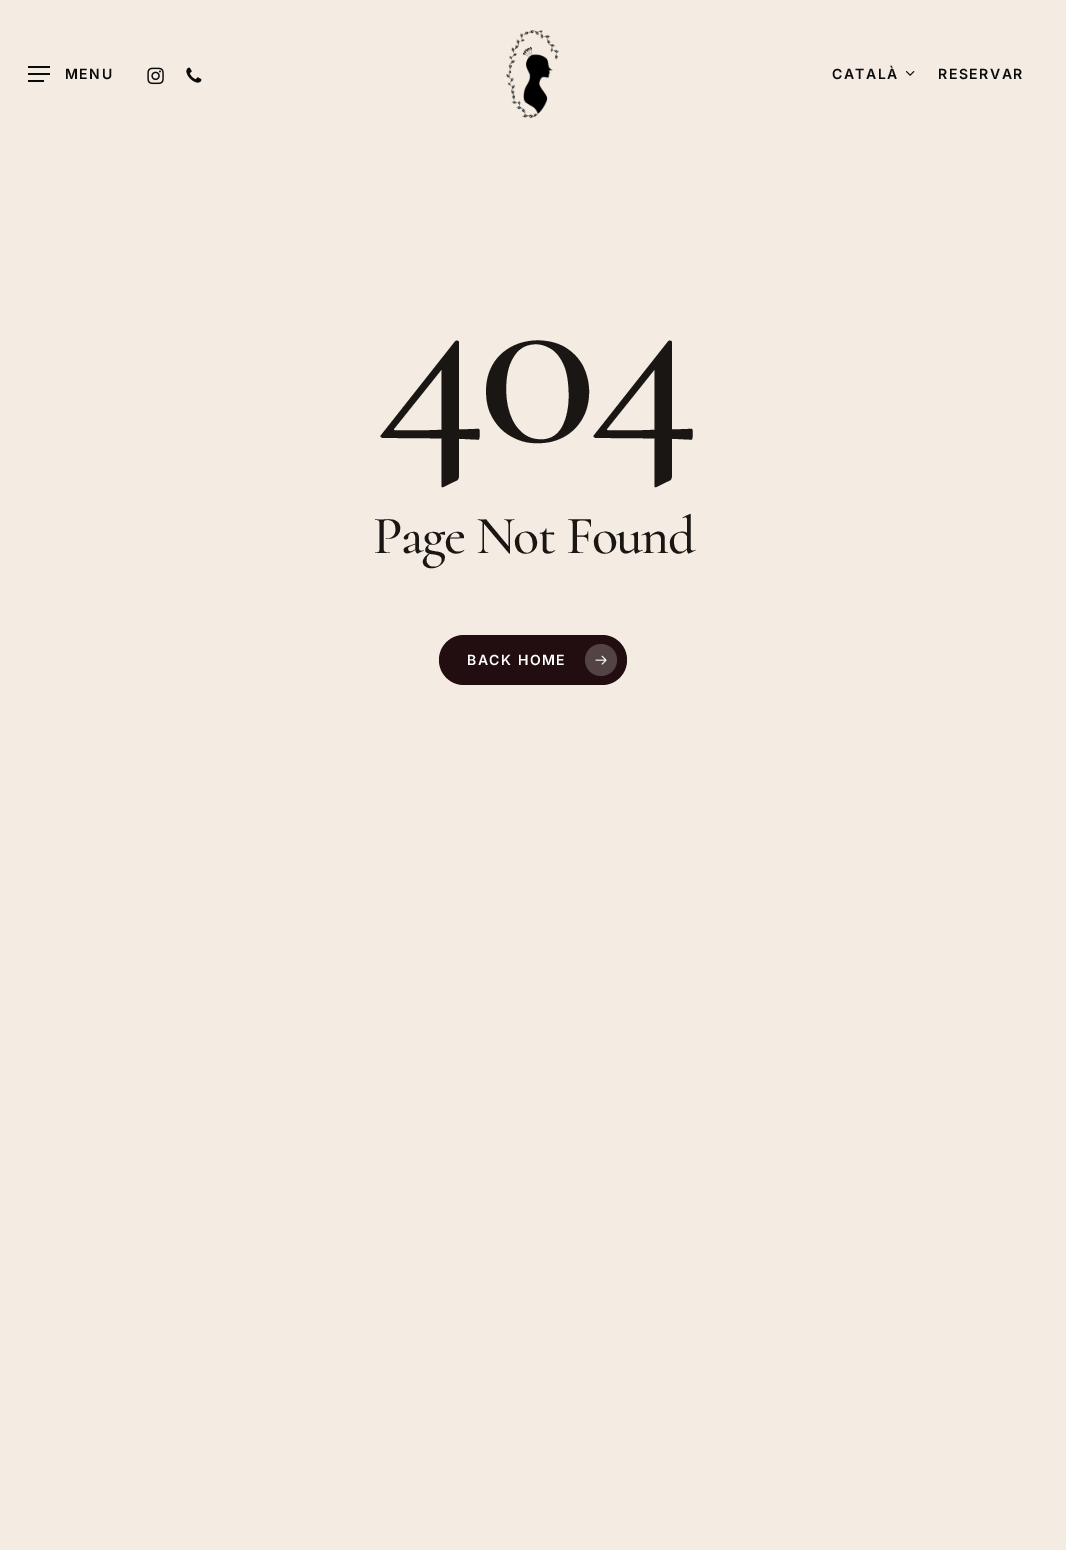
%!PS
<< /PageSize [1066 1550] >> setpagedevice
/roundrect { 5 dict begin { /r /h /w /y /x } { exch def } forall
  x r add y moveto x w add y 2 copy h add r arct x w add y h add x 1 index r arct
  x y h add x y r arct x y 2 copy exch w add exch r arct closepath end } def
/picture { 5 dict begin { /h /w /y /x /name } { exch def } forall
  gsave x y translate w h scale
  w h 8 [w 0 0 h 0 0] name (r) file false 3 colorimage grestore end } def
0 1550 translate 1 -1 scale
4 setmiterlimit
0.957 0.925 0.886 setrgbcolor
0 0 1066 1550 rectfill
0.039 setgray
28 66 22 2 rectfill
28 80 16 2 rectfill
28 73 22 2 rectfill
/Inter-SemiBold [14 0 0 -14 0 0] selectfont
65 79 moveto 1.5 0 (MENU) ashow
(img1.rgb) 147 67 17 18 picture
(img2.rgb) 186 67 16 16 picture
(img3.rgb) 505 30 54 89 picture
832 79 moveto 1.5 0 (CATALÀ) ashow
(img4.rgb) 905 71 10 5 picture
938 79 moveto 1.5 0 (RESERVAR) ashow
/Cormorant-Medium [250 0 0 -250 0 0] selectfont
0.098 0.086 0.078 setrgbcolor
375 440 moveto -10 0 (404) ashow
/Cormorant-Medium [54 0 0 -54 0 0] selectfont
373 553 moveto -1.6 0 (Page Not Found) ashow
0.133 0.055 0.063 setrgbcolor
439 635 188 50 25 roundrect fill
/Inter-SemiBold [14 0 0 -14 0 0] selectfont
1 setgray
467 665 moveto 1.5 0 (BACK HOME) ashow
0.325 0.263 0.271 setrgbcolor
newpath 601 660 16 0 360 arc closepath fill
(img5.rgb) 595 655 12 10 picture
showpage
